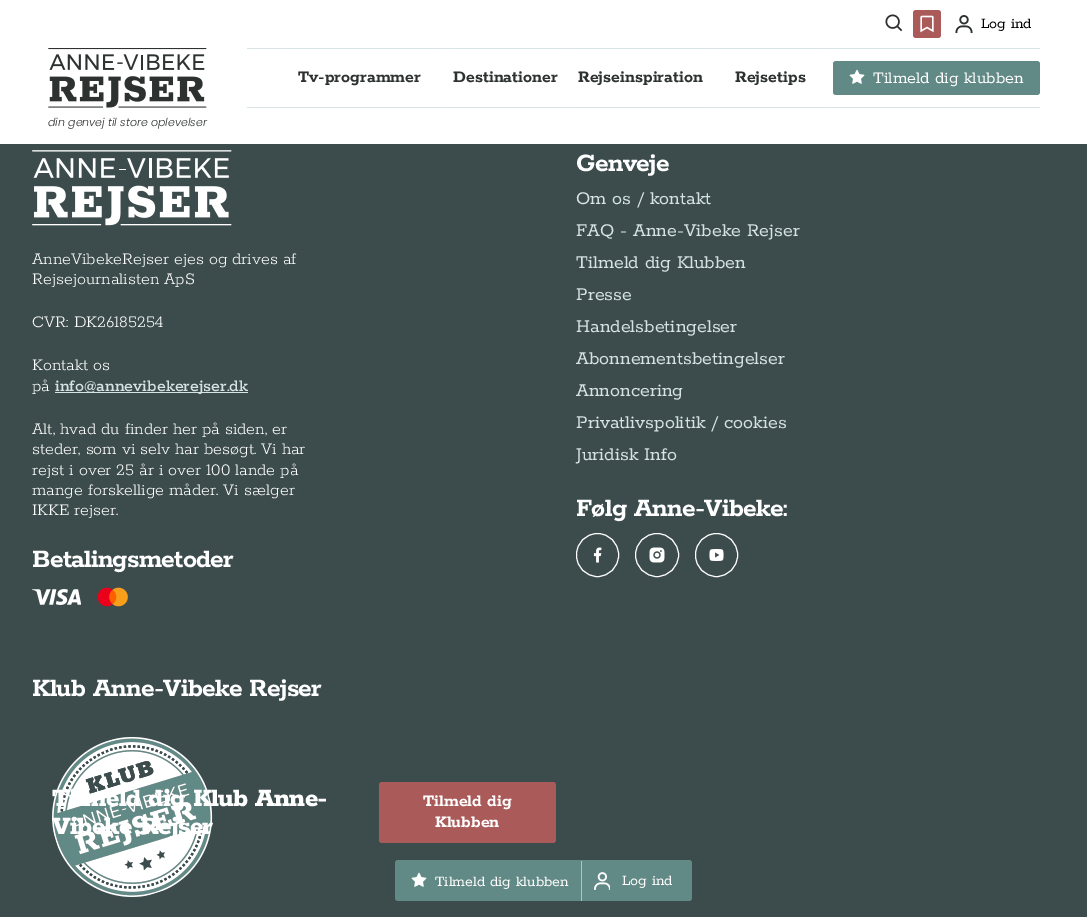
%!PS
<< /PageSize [1087 917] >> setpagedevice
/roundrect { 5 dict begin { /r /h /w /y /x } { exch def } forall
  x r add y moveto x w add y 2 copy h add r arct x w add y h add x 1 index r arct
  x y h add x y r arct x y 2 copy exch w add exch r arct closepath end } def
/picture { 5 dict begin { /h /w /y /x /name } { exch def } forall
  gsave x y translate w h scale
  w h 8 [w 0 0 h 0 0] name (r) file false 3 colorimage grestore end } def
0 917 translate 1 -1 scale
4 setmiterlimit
0.235 0.294 0.298 setrgbcolor
0 0 1087 917 rectfill
1 setgray
0 0 1087 144 rectfill
(img1.rgb) 885 14 18 18 picture
0.671 0.353 0.353 setrgbcolor
913 10 28 28 3 roundrect fill
(img2.rgb) 920 15 14 18 picture
(img3.rgb) 955 15 18 18 picture
/Rokkitt-Regular [16 0 0 -16 0 0] selectfont
0 setgray
981 28 moveto (Log ind) show
0.855 0.898 0.91 setrgbcolor
247 48 586 1 rectfill
247 107 586 1 rectfill
0.835 0.89 0.894 setrgbcolor
282 48 155 1 rectfill
282 107 155 1 rectfill
/Rokkitt-Bold [18 0 0 -18 0 0] selectfont
0.176 0.192 0.188 setrgbcolor
298 82 moveto (Tv-programmer) show
0.835 0.89 0.894 setrgbcolor
449 48 113 1 rectfill
449 107 113 1 rectfill
0.176 0.192 0.188 setrgbcolor
453 82 moveto (Destinationer) show
0.835 0.89 0.894 setrgbcolor
574 48 133 1 rectfill
574 107 133 1 rectfill
0.176 0.192 0.188 setrgbcolor
578 82 moveto (Rejseinspiration) show
0.835 0.89 0.894 setrgbcolor
719 48 102 1 rectfill
719 107 102 1 rectfill
0.176 0.192 0.188 setrgbcolor
735 82 moveto (Rejsetips) show
0.835 0.89 0.894 setrgbcolor
833 48 207 1 rectfill
833 107 207 1 rectfill
0.38 0.537 0.522 setrgbcolor
833 61 207 34 3 roundrect fill
(img4.rgb) 849 69 16 15 picture
/Rokkitt-Regular [18 0 0 -18 0 0] selectfont
1 setgray
873 83 moveto (Tilmeld dig klubben) show
(img5.rgb) 48 48 159 60 picture
/Poppins-LightItalic [11 0 0 -11 0 0] selectfont
0.176 0.192 0.188 setrgbcolor
48 126 moveto (din genvej til store oplevelser) show
(img6.rgb) 32 150 200 76 picture
/Rokkitt-Light [18 0 0 -18 0 0] selectfont
1 setgray
32 264 moveto (AnneVibekeRejser ejes og drives af) show
32 284 moveto (Rejsejournalisten ApS) show
32 327 moveto (CVR: DK26185254) show
32 370 moveto (Kontakt os) show
32 391 moveto (på) show
0.835 0.89 0.894 setrgbcolor
55 392 193 1 rectfill
/Rokkitt-Medium [18 0 0 -18 0 0] selectfont
55 391 moveto (info@annevibekerejser.dk) show
/Rokkitt-Light [18 0 0 -18 0 0] selectfont
1 setgray
32 434 moveto (Alt, hvad du finder her på siden, er) show
32 454 moveto (steder, som vi selv har besøgt. Vi har) show
32 475 moveto (rejst i over 25 år i over 100 lande på) show
32 495 moveto (mange forskellige måder. Vi sælger) show
32 515 moveto (IKKE rejser.) show
/Rokkitt-Bold [28 0 0 -28 0 0] selectfont
32 567 moveto -0.7 0 (Betalingsmetoder) ashow
(img7.rgb) 32 589 49 16 picture
(img8.rgb) 97 587 31 20 picture
576 171 moveto -0.7 0 (Genveje) ashow
/Rokkitt-Regular [20 0 0 -20 0 0] selectfont
0.835 0.89 0.894 setrgbcolor
576 204 moveto (Om os / kontakt) show
576 236 moveto (FAQ - Anne-Vibeke Rejser) show
576 268 moveto (Tilmeld dig Klubben) show
576 300 moveto (Presse) show
576 332 moveto (Handelsbetingelser) show
576 364 moveto (Abonnementsbetingelser) show
576 396 moveto (Annoncering) show
576 428 moveto (Privatlivspolitik / cookies) show
576 460 moveto (Juridisk Info) show
/Rokkitt-Bold [28 0 0 -28 0 0] selectfont
1 setgray
576 516 moveto -0.7 0 (Følg Anne-Vibeke:) ashow
576.5 533.5 42 43 21 roundrect stroke
(img9.rgb) 593 547 9 16 picture
newpath 657 555 21.5 0 360 arc closepath stroke
(img10.rgb) 649 547 16 16 picture
695.5 533.5 42 43 21 roundrect stroke
(img11.rgb) 709 549 15 12 picture
32 696 moveto -0.7 0 (Klub Anne-Vibeke Rejser) ashow
(img12.rgb) 52 736 161 161 picture
/Rokkitt-ExtraBold [28 0 0 -28 0 0] selectfont
52 806 moveto -0.7 0 (Tilmeld dig Klub Anne-) ashow
52 834 moveto -0.7 0 (Vibeke Rejser) ashow
0.671 0.353 0.353 setrgbcolor
379 782 177 61 3 roundrect fill
/Rokkitt-Bold [18 0 0 -18 0 0] selectfont
1 setgray
423 806 moveto (Tilmeld dig) show
435 827 moveto (Klubben) show
0.38 0.537 0.522 setrgbcolor
395 860 297 41 3 roundrect fill
(img4.rgb) 411 872 16 15 picture
/Rokkitt-Regular [16 0 0 -16 0 0] selectfont
1 setgray
435 886 moveto (Tilmeld dig klubben) show
0.69 0.769 0.761 setrgbcolor
581 861 1 40 rectfill
(img13.rgb) 594 872 16 18 picture
1 setgray
622 885 moveto (Log ind) show
showpage
